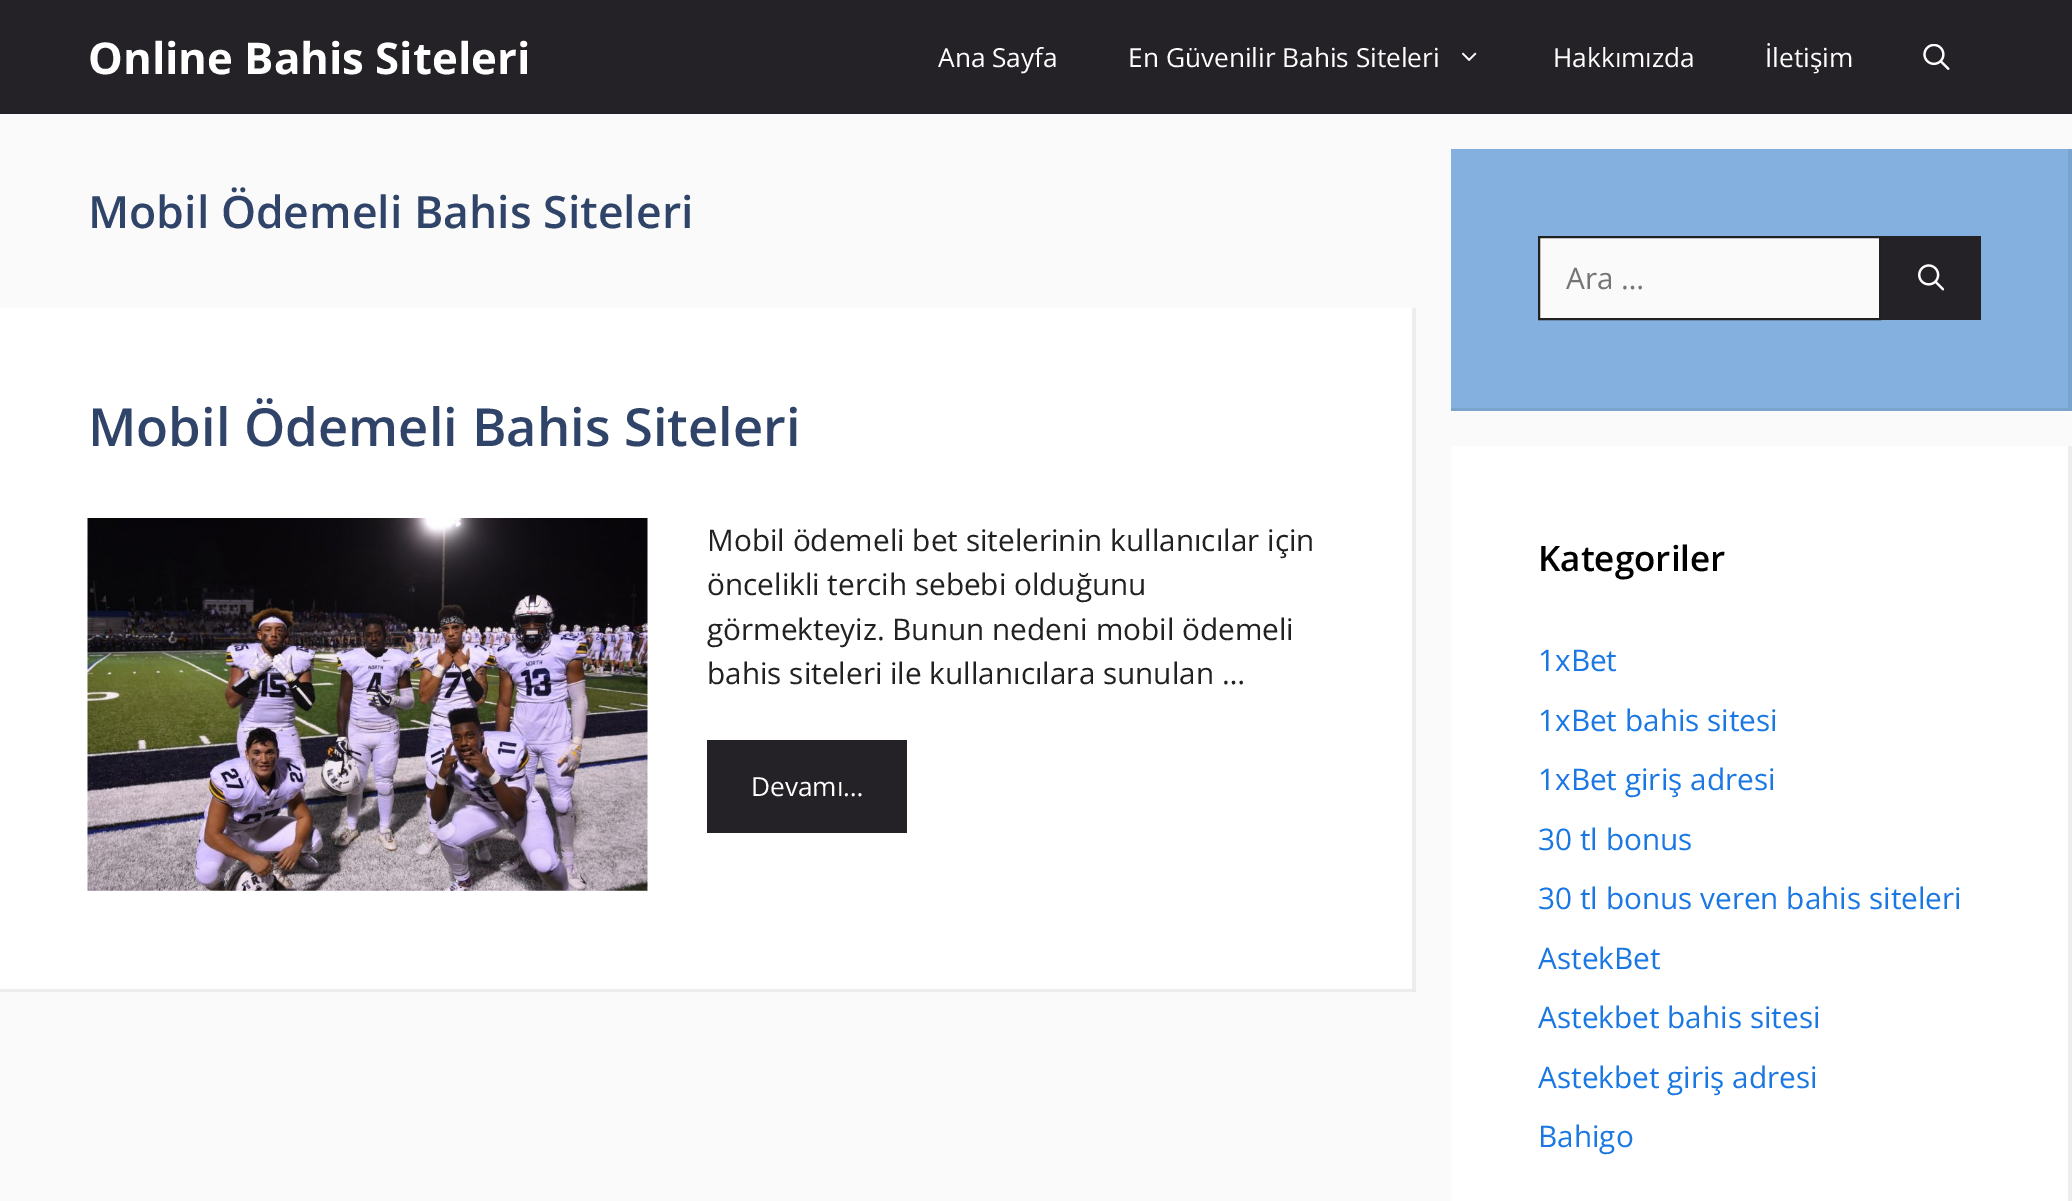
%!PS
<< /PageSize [2072 1201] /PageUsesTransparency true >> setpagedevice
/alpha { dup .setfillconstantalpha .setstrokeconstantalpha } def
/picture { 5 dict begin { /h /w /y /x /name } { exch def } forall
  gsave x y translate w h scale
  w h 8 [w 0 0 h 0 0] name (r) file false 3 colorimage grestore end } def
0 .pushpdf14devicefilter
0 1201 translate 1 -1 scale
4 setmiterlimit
0.98 setgray
0 0 2072 1201 rectfill
0.141 0.133 0.149 setrgbcolor
0 0 2072 114 rectfill
/OpenSans-Bold [43.75 0 0 -43.75 0 0] selectfont
1 setgray
88 74 moveto (Online Bahis Siteleri) show
/OpenSans-Regular [26.25 0 0 -26.25 0 0] selectfont
938 67 moveto (Ana Sayfa) show
1128 67 moveto (En Güvenilir Bahis Siteleri) show
(img1.rgb) 1461 52 16 9 picture
1553 67 moveto (Hakkımızda) show
1765 67 moveto (İletişim) show
(img2.rgb) 1923 44 27 26 picture
/OpenSans-SemiBold [44.6 0 0 -44.6 0 0] selectfont
0.184 0.267 0.408 setrgbcolor
88 228 moveto (Mobil Ödemeli Bahis Siteleri) show
1 setgray
0 308 1416 684 rectfill
0.929 setgray
newpath 1416 308 moveto 1416 992 lineto 1412 989 lineto 1412 308 lineto closepath fill
0.07 alpha
0 setgray
newpath 1416 992 moveto 0 992 lineto 0 989 lineto 1412 989 lineto closepath fill
/OpenSans-SemiBold [52.5 0 0 -52.5 0 0] selectfont
1 alpha
0.184 0.267 0.408 setrgbcolor
88 446 moveto (Mobil Ödemeli Bahis Siteleri) show
(img3.rgb) 87 518 561 373 picture
/OpenSans-Regular [29.75 0 0 -29.75 0 0] selectfont
0.129 setgray
707 551 moveto (Mobil ödemeli bet sitelerinin kullanıcılar için) show
707 595 moveto (öncelikli tercih sebebi olduğunu) show
707 640 moveto (görmekteyiz. Bunun nedeni mobil ödemeli) show
707 684 moveto (bahis siteleri ile kullanıcılara sunulan …) show
0.141 0.133 0.149 setrgbcolor
707 740 200 93 rectfill
/OpenSans-Regular [26.25 0 0 -26.25 0 0] selectfont
1 setgray
751 796 moveto (Devamı…) show
0.514 0.69 0.871 setrgbcolor
1451 149 621 262 rectfill
0.478 0.643 0.808 setrgbcolor
newpath 2072 149 moveto 2072 411 lineto 2068 408 lineto 2068 149 lineto closepath fill
0.07 alpha
0 setgray
newpath 2072 411 moveto 1451 411 lineto 1451 408 lineto 2068 408 lineto closepath fill
1 alpha
0.98 setgray
newpath 1539 237 moveto 1880 237 lineto 1880 319 lineto 1539 319 lineto closepath gsave fill grestore
0.129 setgray
2 setlinewidth
stroke
/OpenSans-Regular [29.75 0 0 -29.75 0 0] selectfont
0.459 setgray
1566 289 moveto (Ara …) show
0.141 0.133 0.149 setrgbcolor
1881 236 100 84 rectfill
(img4.rgb) 1918 264 26 27 picture
1 setgray
1451 446 617 755 rectfill
0.929 setgray
newpath 2072 446 moveto 2072 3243 lineto 2068 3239 lineto 2068 446 lineto closepath fill
/OpenSans-SemiBold [35 0 0 -35 0 0] selectfont
0 setgray
1538 571 moveto (Kategoriler) show
/OpenSans-Regular [29.75 0 0 -29.75 0 0] selectfont
0.106 0.471 0.886 setrgbcolor
1538 671 moveto (1xBet) show
1538 731 moveto (1xBet bahis sitesi) show
1538 790 moveto (1xBet giriş adresi) show
1538 850 moveto (30 tl bonus) show
1538 909 moveto (30 tl bonus veren bahis siteleri) show
1538 969 moveto (AstekBet) show
1538 1028 moveto (Astekbet bahis sitesi) show
1538 1088 moveto (Astekbet giriş adresi) show
1538 1147 moveto (Bahigo) show
.poppdf14devicefilter showpage
